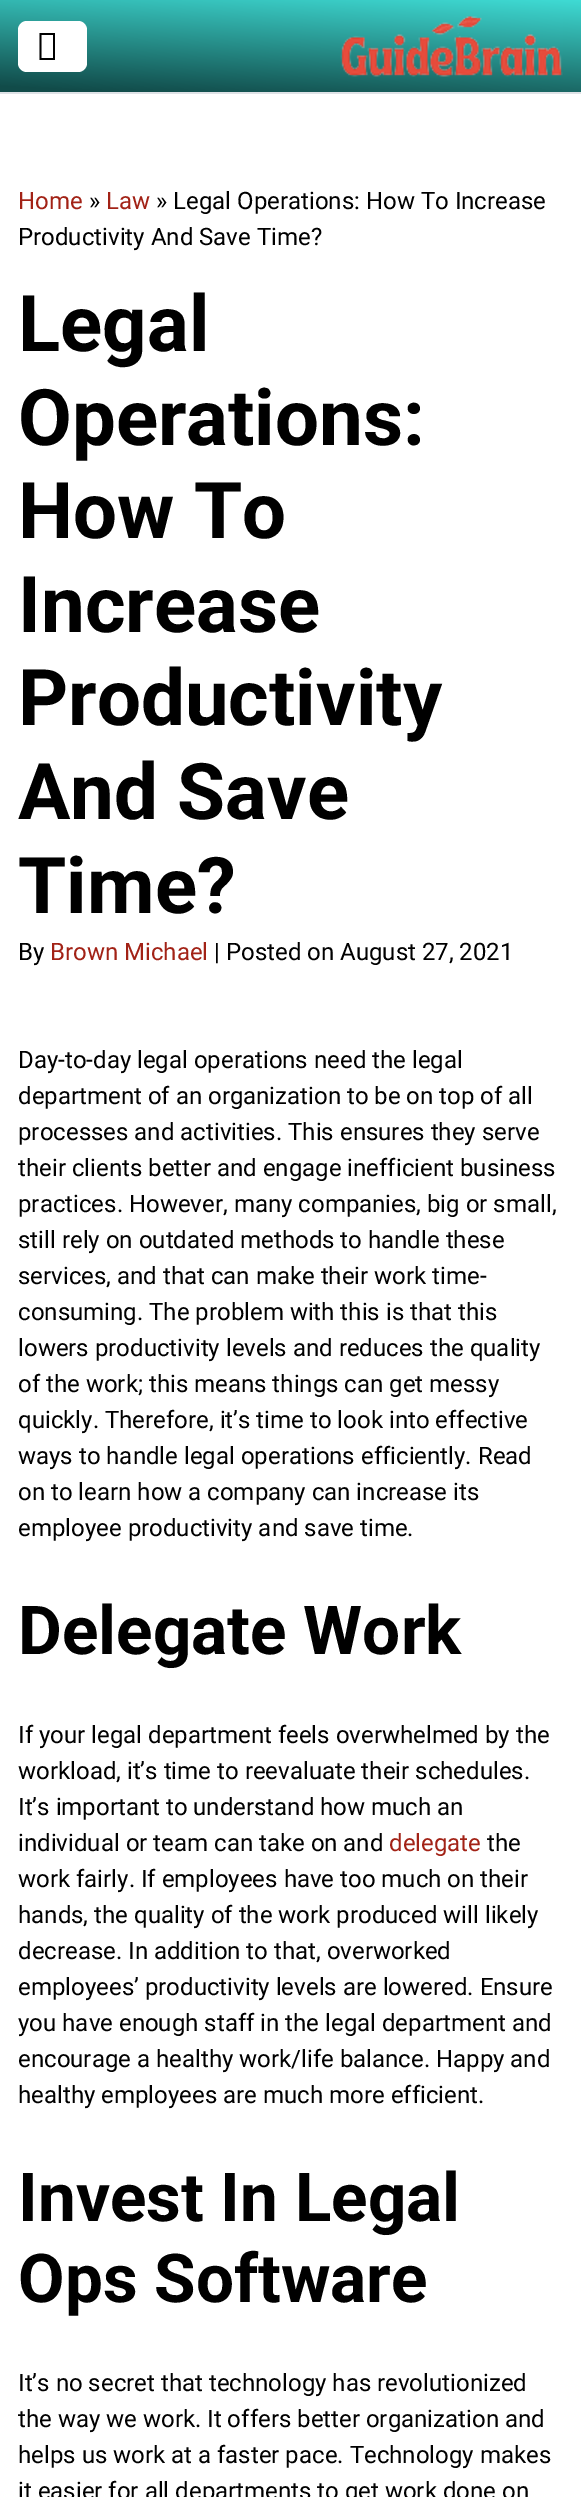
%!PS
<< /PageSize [581 2497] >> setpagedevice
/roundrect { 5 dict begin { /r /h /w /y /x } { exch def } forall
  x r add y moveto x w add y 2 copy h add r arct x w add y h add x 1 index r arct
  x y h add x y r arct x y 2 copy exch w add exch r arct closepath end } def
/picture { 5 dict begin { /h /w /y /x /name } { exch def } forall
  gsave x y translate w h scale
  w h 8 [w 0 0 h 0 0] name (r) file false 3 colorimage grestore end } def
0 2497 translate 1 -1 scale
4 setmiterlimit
1 setgray
0 0 581 2497 rectfill
gsave newpath 0 0 moveto 581 0 lineto 581 92 lineto 0 92 lineto closepath clip newpath
<< /ShadingType 2 /ColorSpace /DeviceRGB /Coords [294 -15 288 107] /Extend [true true] /Function << /FunctionType 3 /Domain [0 1] /Functions [<< /FunctionType 2 /Domain [0 1] /C0 [0.247 0.863 0.835] /C1 [0.067 0.294 0.286] /N 1 >> << /FunctionType 2 /Domain [0 1] /C0 [0.067 0.294 0.286] /C1 [0.067 0.294 0.286] /N 1 >>] /Bounds [0.95] /Encode [0 1 0 1] >> >> shfill grestore
0.871 0.886 0.902 setrgbcolor
0 92 581 2 rectfill
1 setgray
18 21 69 51 9 roundrect fill
0 setgray
newpath 39.5 60 moveto 39.5 33 lineto 55 33 lineto 55 60 lineto closepath 41.5 58 moveto 53 58 lineto 53 35 lineto 41.5 35 lineto closepath fill
(img1.rgb) 340 16 223 61 picture
/Roboto-Regular [24 0 0 -24 0 0] selectfont
0.635 0.133 0.086 setrgbcolor
18 209 moveto (Home) show
0 setgray
89 209 moveto (») show
0.635 0.133 0.086 setrgbcolor
106 209 moveto (Law) show
0 setgray
156 209 moveto (» Legal Operations: How To Increase) show
18 245 moveto (Productivity And Save Time?) show
/Roboto-Bold [78 0 0 -78 0 0] selectfont
18 351 moveto (Legal) show
18 445 moveto (Operations:) show
18 538 moveto (How To) show
18 632 moveto (Increase) show
18 725 moveto (Productivity) show
18 819 moveto (And Save) show
18 913 moveto (Time?) show
/Roboto-Regular [24 0 0 -24 0 0] selectfont
18 960 moveto (By) show
0.635 0.133 0.086 setrgbcolor
50 960 moveto (Brown Michael) show
0 setgray
214 960 moveto (| Posted on August 27, 2021) show
18 1068 moveto (Day-to-day legal operations need the legal) show
18 1104 moveto (department of an organization to be on top of all) show
18 1140 moveto (processes and activities. This ensures they serve) show
18 1176 moveto (their clients better and engage inefficient business) show
18 1212 moveto (practices. However, many companies, big or small,) show
18 1248 moveto (still rely on outdated methods to handle these) show
18 1284 moveto (services, and that can make their work time-) show
18 1320 moveto (consuming. The problem with this is that this) show
18 1356 moveto (lowers productivity levels and reduces the quality) show
18 1392 moveto (of the work; this means things can get messy) show
18 1428 moveto (quickly. Therefore, it’s time to look into effective) show
18 1464 moveto (ways to handle legal operations efficiently. Read) show
18 1500 moveto (on to learn how a company can increase its) show
18 1536 moveto (employee productivity and save time.) show
/Roboto-Bold [67.5 0 0 -67.5 0 0] selectfont
18 1654 moveto (Delegate Work) show
/Roboto-Regular [24 0 0 -24 0 0] selectfont
18 1743 moveto (If your legal department feels overwhelmed by the) show
18 1779 moveto (workload, it’s time to reevaluate their schedules.) show
18 1815 moveto (It’s important to understand how much an) show
18 1851 moveto (individual or team can take on and) show
0.635 0.133 0.086 setrgbcolor
389 1851 moveto (delegate) show
0 setgray
487 1851 moveto (the) show
18 1887 moveto (work fairly. If employees have too much on their) show
18 1923 moveto (hands, the quality of the work produced will likely) show
18 1959 moveto (decrease. In addition to that, overworked) show
18 1995 moveto (employees’ productivity levels are lowered. Ensure) show
18 2031 moveto (you have enough staff in the legal department and) show
18 2067 moveto (encourage a healthy work/life balance. Happy and) show
18 2103 moveto (healthy employees are much more efficient.) show
/Roboto-Bold [67.5 0 0 -67.5 0 0] selectfont
18 2221 moveto (Invest In Legal) show
18 2302 moveto (Ops Software) show
/Roboto-Regular [24 0 0 -24 0 0] selectfont
18 2391 moveto (It’s no secret that technology has revolutionized) show
18 2427 moveto (the way we work. It offers better organization and) show
18 2463 moveto (helps us work at a faster pace. Technology makes) show
18 2499 moveto (it easier for all departments to get work done on) show
showpage
